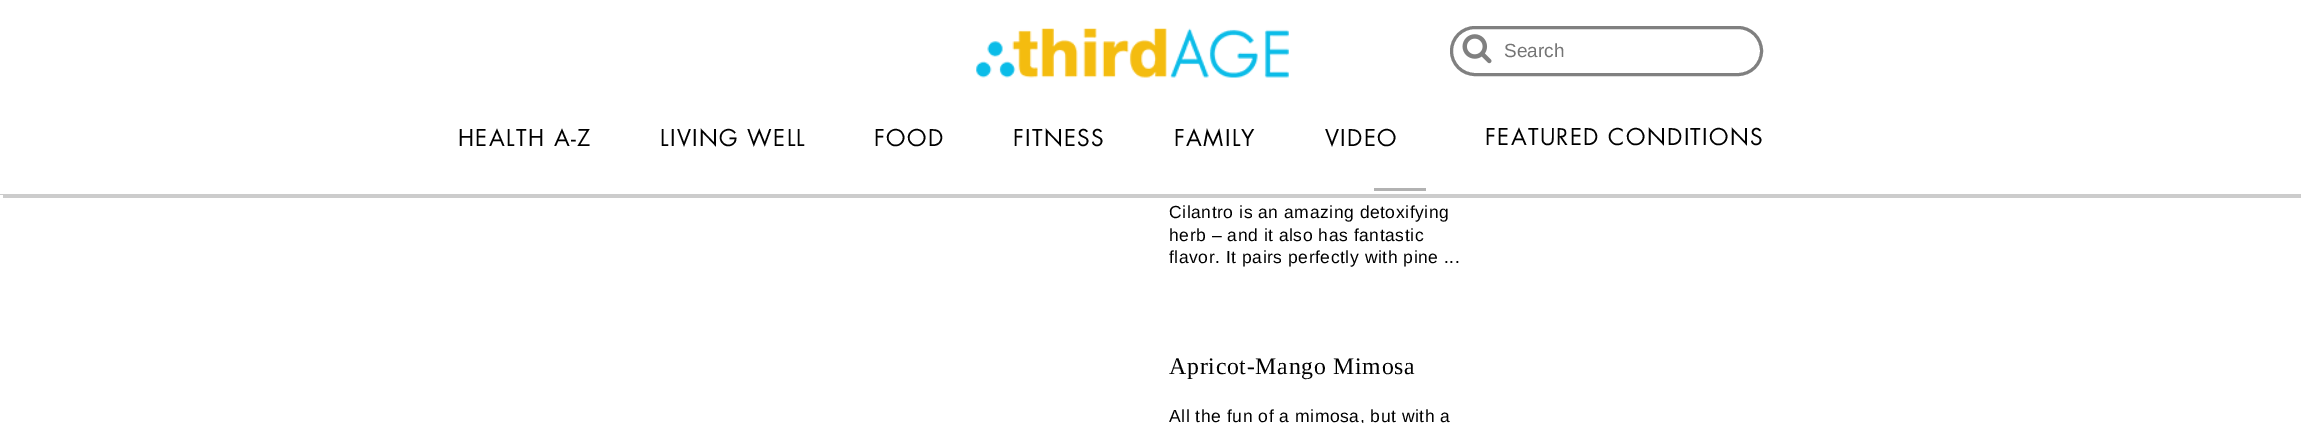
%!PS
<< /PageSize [2301 423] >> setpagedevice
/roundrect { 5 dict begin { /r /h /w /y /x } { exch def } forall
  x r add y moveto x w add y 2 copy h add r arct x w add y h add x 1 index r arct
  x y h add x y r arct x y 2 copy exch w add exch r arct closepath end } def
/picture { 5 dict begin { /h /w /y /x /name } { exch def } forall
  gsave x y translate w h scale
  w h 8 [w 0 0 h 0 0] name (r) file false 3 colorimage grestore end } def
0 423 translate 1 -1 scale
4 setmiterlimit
1 setgray
0 0 2301 423 rectfill
0.8 setgray
newpath 3 195 moveto 3 198 lineto 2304 198 lineto 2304 3 lineto 2301 3 lineto 2301 195 lineto closepath fill
0 194 2301 1 rectfill
(img1.rgb) 976 28 313 50 picture
0.502 setgray
3 setlinewidth
1451.5 27.5 310 47 23.5 roundrect stroke
(img2.rgb) 1462 34 30 30 picture
/LiberationSans-Regular [19 0 0 -19 0 0] selectfont
0.459 setgray
1504 57 moveto (Search) show
/Futura-Regular [22.5 0 0 -22.5 0 0] selectfont
0 setgray
458 146 moveto 1.4 0 (HEALTH A-Z) ashow
660 146 moveto 1.4 0 (LIVING WELL) ashow
874 146 moveto 1.4 0 (FOOD) ashow
1013 146 moveto 1.4 0 (FITNESS) ashow
1174 146 moveto 1.4 0 (FAMILY) ashow
1325 146 moveto 1.4 0 (VIDEO) ashow
1485 145 moveto 1.4 0 (FEATURED CONDITIONS) ashow
0.698 setgray
1374 188 52 3 rectfill
/LiberationSans-Regular [17.5 0 0 -17.5 0 0] selectfont
0 setgray
1169 218 moveto 0.55 0 (Cilantro is an amazing detoxifying) ashow
1169 241 moveto 0.55 0 (herb – and it also has fantastic) ashow
1169 263 moveto 0.55 0 (flavor. It pairs perfectly with pine ...) ashow
/LiberationSerif-Regular [23.75 0 0 -23.75 0 0] selectfont
1169 374 moveto 0.75 0 (Apricot-Mango Mimosa) ashow
/LiberationSans-Regular [17.5 0 0 -17.5 0 0] selectfont
1169 422 moveto 0.55 0 (All the fun of a mimosa, but with a) ashow
showpage
